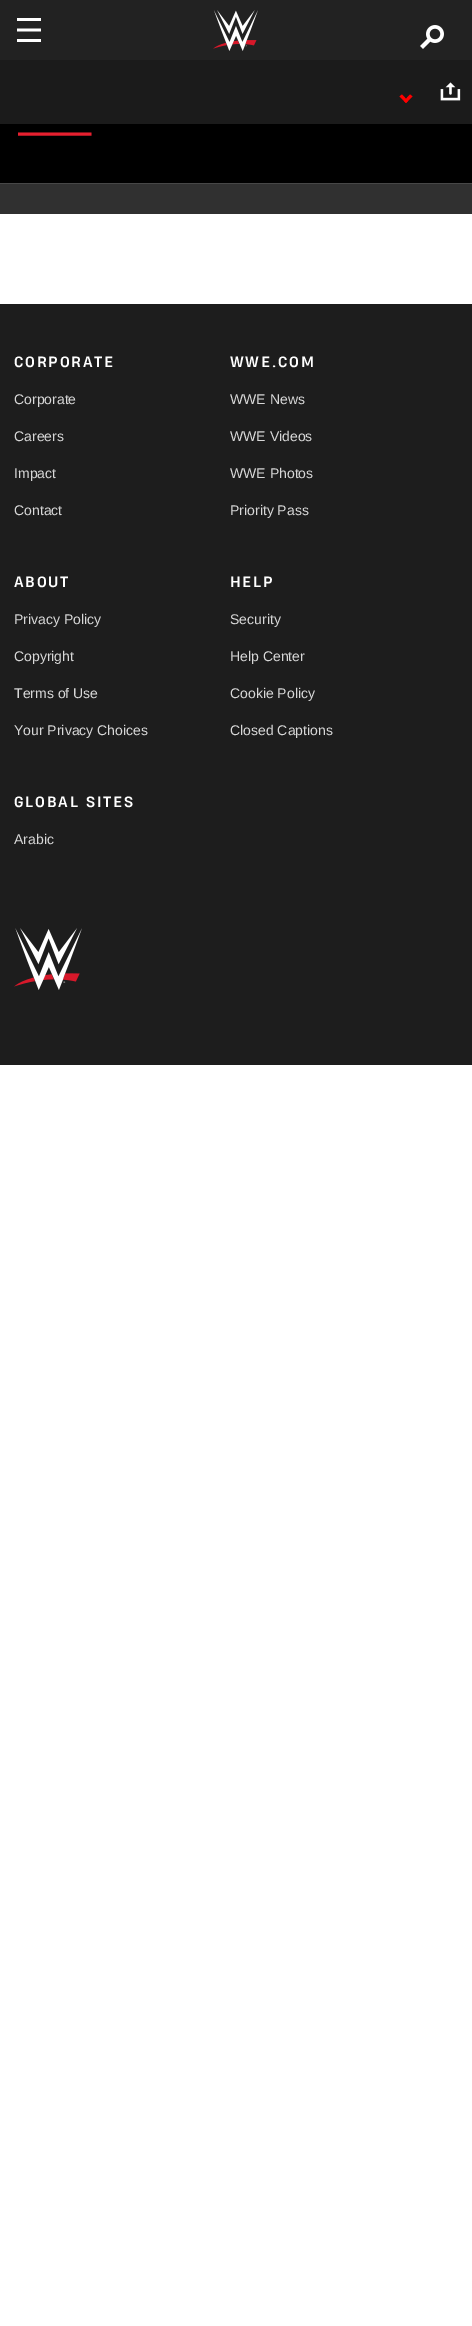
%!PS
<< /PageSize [472 2326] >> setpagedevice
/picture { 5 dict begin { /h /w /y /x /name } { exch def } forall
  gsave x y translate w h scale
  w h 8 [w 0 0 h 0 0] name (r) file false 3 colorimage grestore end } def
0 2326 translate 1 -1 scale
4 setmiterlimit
1 setgray
0 0 472 2326 rectfill
0.133 setgray
0 0 472 60 rectfill
(img1.rgb) 17 18 24 24 picture
(img2.rgb) 213 10 45 41 picture
(img3.rgb) 420 25 24 24 picture
0.188 setgray
0 184 472 30 rectfill
0.106 setgray
0 60 472 64 rectfill
1 0 0 setrgbcolor
newpath 410 94.5 moveto 412.5 96.5 lineto 406 103 lineto 404 101 lineto closepath fill
newpath 402 94.5 moveto 408 101 lineto 406 103 lineto 399.5 96.5 lineto closepath fill
(img4.rgb) 440 82 21 19 picture
0 setgray
0 124 472 59 rectfill
0.278 setgray
0 183 472 1 rectfill
gsave
18 131 90 5 rectclip
0.906 0.125 0.184 setrgbcolor
3 setlinewidth
newpath 1.5 134 moveto 91.5 134 lineto stroke
grestore
0.114 setgray
0 304 472 761 rectfill
/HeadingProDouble-Bold [14 0 0 -14 0 0] selectfont
1 setgray
14 367 moveto 1.75 0 (CORPORATE) ashow
/LiberationSans-Regular [14 0 0 -14 0 0] selectfont
0.847 setgray
14 404 moveto (Corporate) show
14 441 moveto (Careers) show
14 478 moveto (Impact) show
14 515 moveto (Contact) show
/HeadingProDouble-Bold [14 0 0 -14 0 0] selectfont
1 setgray
230 367 moveto 1.75 0 (WWE.COM) ashow
/LiberationSans-Regular [14 0 0 -14 0 0] selectfont
0.847 setgray
230 404 moveto (WWE News) show
230 441 moveto (WWE Videos) show
230 478 moveto (WWE Photos) show
230 515 moveto (Priority Pass) show
/HeadingProDouble-Bold [14 0 0 -14 0 0] selectfont
1 setgray
14 587 moveto 1.75 0 (ABOUT) ashow
/LiberationSans-Regular [14 0 0 -14 0 0] selectfont
0.847 setgray
14 624 moveto (Privacy Policy) show
14 661 moveto (Copyright) show
14 698 moveto (Terms of Use) show
14 735 moveto (Your Privacy Choices) show
/HeadingProDouble-Bold [14 0 0 -14 0 0] selectfont
1 setgray
230 587 moveto 1.75 0 (HELP) ashow
/LiberationSans-Regular [14 0 0 -14 0 0] selectfont
0.847 setgray
230 624 moveto (Security) show
230 661 moveto (Help Center) show
230 698 moveto (Cookie Policy) show
230 735 moveto (Closed Captions) show
/HeadingProDouble-Bold [14 0 0 -14 0 0] selectfont
1 setgray
14 807 moveto 1.75 0 (GLOBAL SITES) ashow
/LiberationSans-Regular [14 0 0 -14 0 0] selectfont
0.847 setgray
14 844 moveto (Arabic) show
(img5.rgb) 14 928 68 62 picture
showpage
